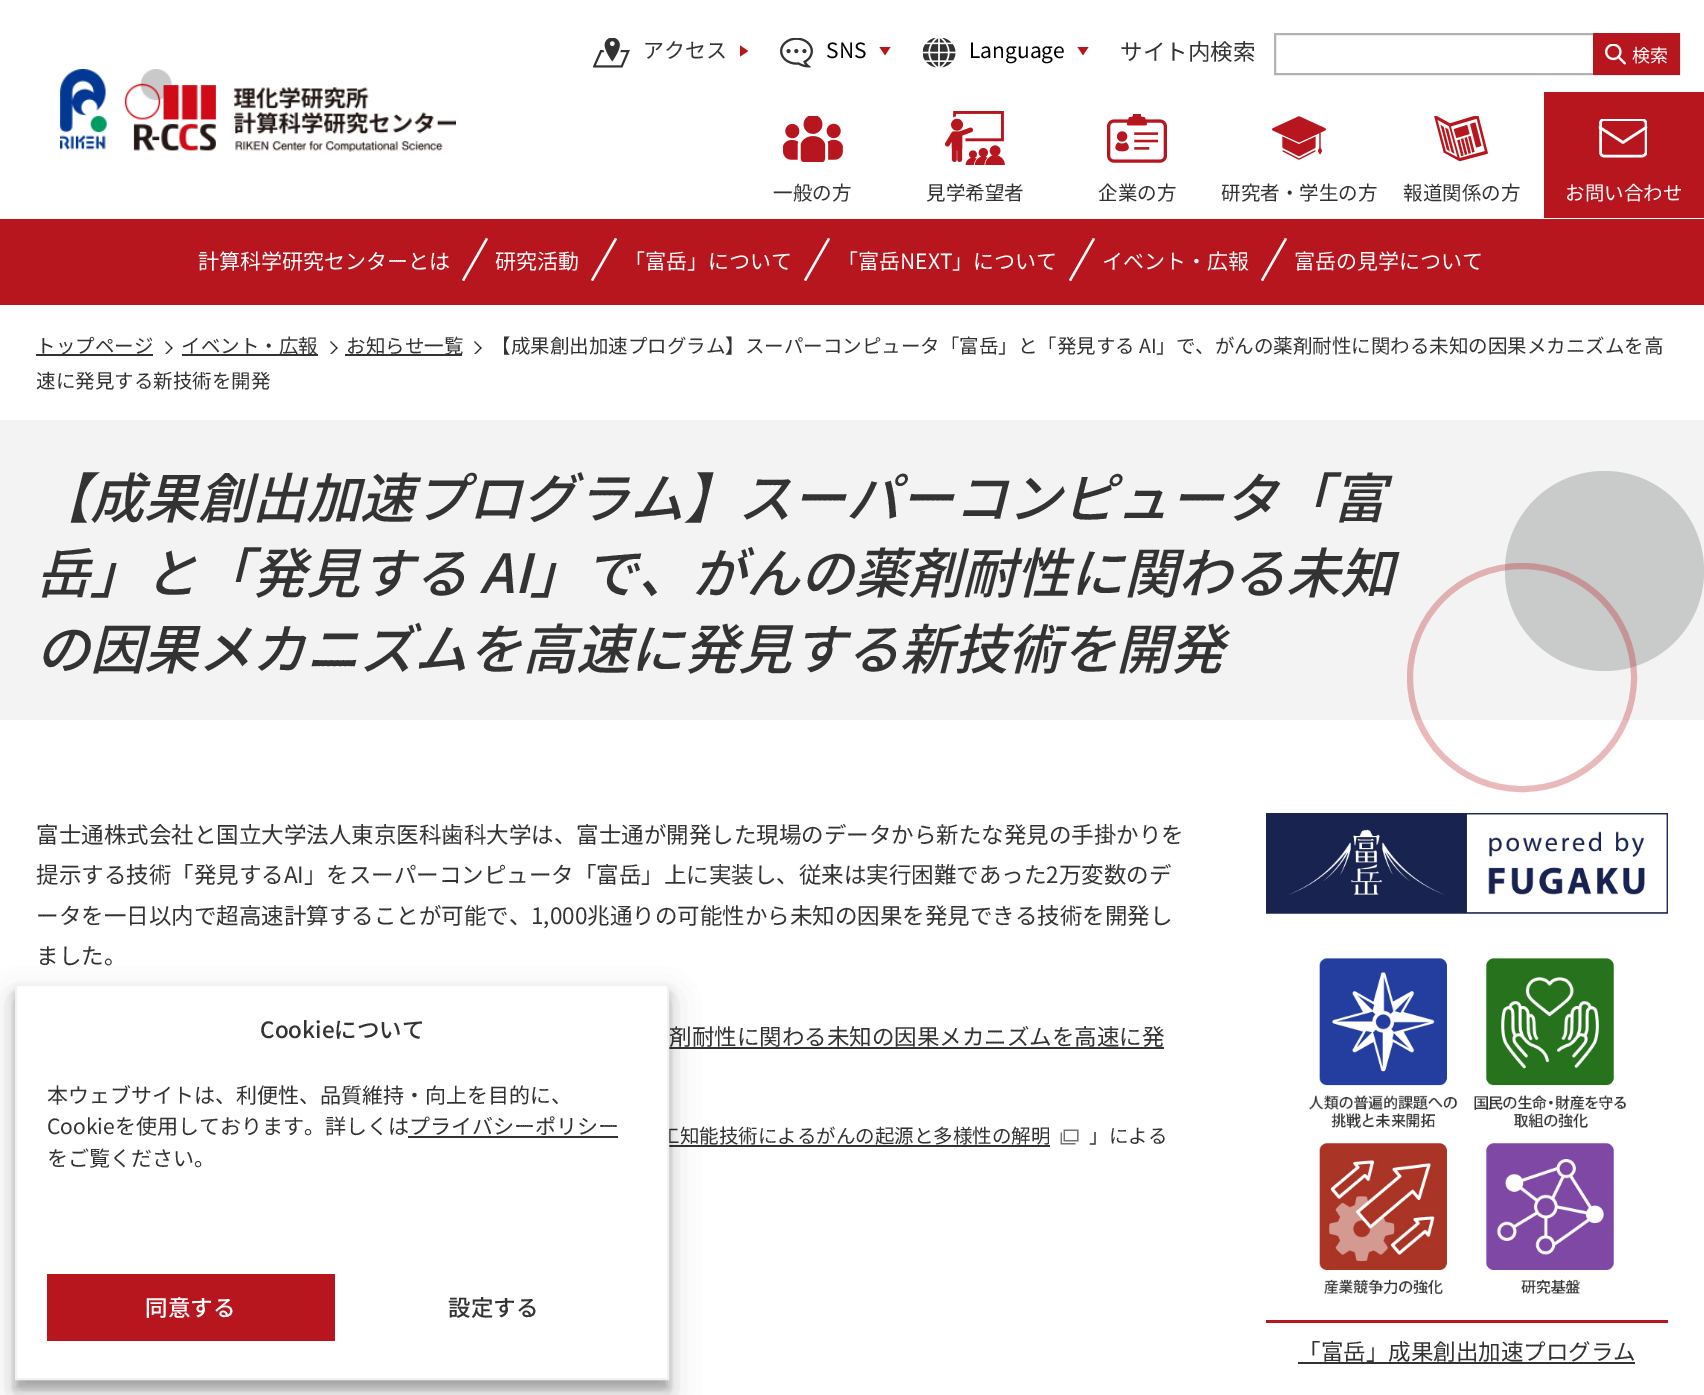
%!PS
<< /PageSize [1704 1395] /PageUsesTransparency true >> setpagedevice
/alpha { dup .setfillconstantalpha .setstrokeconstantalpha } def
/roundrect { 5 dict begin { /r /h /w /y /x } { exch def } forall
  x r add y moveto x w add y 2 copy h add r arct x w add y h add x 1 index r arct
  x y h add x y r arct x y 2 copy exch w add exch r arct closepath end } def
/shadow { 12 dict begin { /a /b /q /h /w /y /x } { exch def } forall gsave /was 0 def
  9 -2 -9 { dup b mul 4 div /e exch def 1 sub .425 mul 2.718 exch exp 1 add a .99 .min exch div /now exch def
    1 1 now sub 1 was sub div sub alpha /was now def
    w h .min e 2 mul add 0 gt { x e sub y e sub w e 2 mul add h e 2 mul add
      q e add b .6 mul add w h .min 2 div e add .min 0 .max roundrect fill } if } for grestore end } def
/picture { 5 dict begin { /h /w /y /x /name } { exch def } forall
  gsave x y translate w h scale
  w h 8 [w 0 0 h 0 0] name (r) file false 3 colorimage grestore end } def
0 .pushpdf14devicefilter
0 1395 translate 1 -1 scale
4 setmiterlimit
1 setgray
0 0 1704 1395 rectfill
(img1.rgb) 593 38 37 30 picture
/NotoSansJP-Regular [21 0 0 -21 0 0] selectfont
0.2 setgray
643 58 moveto (アクセス) show
(img2.rgb) 740 45 9 12 picture
(img3.rgb) 780 38 33 30 picture
0 setgray
826 58 moveto (SNS) show
(img4.rgb) 879 47 12 9 picture
(img5.rgb) 923 38 33 30 picture
969 58 moveto (Language) show
(img4.rgb) 1077 47 12 9 picture
/NotoSansJP-Regular [22.5 0 0 -22.5 0 0] selectfont
0.2 setgray
1120 60 moveto (サイト内検索) show
0.702 setgray
2 setlinewidth
1275 34 404 40 rectstroke
0.722 0.086 0.118 setrgbcolor
1593 33 87 42 rectfill
(img6.rgb) 1605 44 21 21 picture
/NotoSansJP-Regular [18 0 0 -18 0 0] selectfont
1 setgray
1632 62 moveto (検索) show
(img7.rgb) 60 69 396 83 picture
(img8.rgb) 783 116 60 46 picture
/NotoSansJP-Regular [19.5 0 0 -19.5 0 0] selectfont
0.2 setgray
773 200 moveto (一般の方) show
(img9.rgb) 945 111 60 54 picture
926 200 moveto (見学希望者) show
(img10.rgb) 1107 114 60 49 picture
1098 200 moveto (企業の方) show
(img11.rgb) 1272 116 54 44 picture
1221 200 moveto (研究者・学生の方) show
(img12.rgb) 1434 116 54 46 picture
1403 200 moveto (報道関係の方) show
0.722 0.086 0.118 setrgbcolor
1544 92 160 126 rectfill
gsave
1599 119 48 39 rectclip
1 setgray
2.5 setlinewidth
1 setlinecap
1 setlinejoin
newpath 1604 119.5 moveto 1642 119.5 lineto 1644 119.5 1646 121.5 1646 123.5 curveto 1646 152.5 lineto 1646 154.5 1644 156 1642 156 curveto 1604 156 lineto 1602 156 1600.5 154.5 1600.5 152.5 curveto 1600.5 123.5 lineto 1600 121.5 1602 119.5 1604 119.5 curveto closepath stroke
grestore
1 setgray
2.5 setlinewidth
1 setlinecap
1 setlinejoin
newpath 1600 127.5 moveto 1623 142.5 lineto 1646 127.5 lineto stroke
1565 200 moveto (お問い合わせ) show
0.722 0.086 0.118 setrgbcolor
0 219 1704 86 rectfill
/NotoSansJP-Regular [21 0 0 -21 0 0] selectfont
1 setgray
198 269 moveto (計算科学研究センターとは) show
newpath 486 238 moveto 488 239 lineto 464 281 lineto 462 280 lineto closepath fill
495 269 moveto (研究活動) show
newpath 615 238 moveto 617 239 lineto 593 281 lineto 591 280 lineto closepath fill
624 269 moveto (「富岳」について) show
newpath 828 238 moveto 830 239 lineto 806 281 lineto 804 280 lineto closepath fill
837 269 moveto (「富岳NEXT」について) show
newpath 1093 238 moveto 1095 239 lineto 1071 281 lineto 1069 280 lineto closepath fill
1102 269 moveto (イベント・広報) show
newpath 1285 238 moveto 1287 239 lineto 1263 281 lineto 1261 280 lineto closepath fill
1294 269 moveto (富岳の見学について) show
0.2 setgray
36 354 117 2 rectfill
/NotoSansJP-Regular [19.5 0 0 -19.5 0 0] selectfont
36 353 moveto (トップページ) show
(img13.rgb) 165 340 8 14 picture
182 354 136 2 rectfill
181 353 moveto (イベント・広報) show
(img14.rgb) 330 340 8 14 picture
345 354 117 2 rectfill
346 353 moveto (お知らせ一覧) show
(img14.rgb) 474 340 8 14 picture
491 353 moveto (【成果創出加速プログラム】スーパーコンピュータ「富岳」と「発見する AI」で、がんの薬剤耐性に関わる未知の因果メカニズムを高) show
36 388 moveto (速に発見する新技術を開発) show
0.953 setgray
0 420 1704 300 rectfill
/NotoSansJP-MediumItalic [54 0 0 -54 0 0] selectfont
0.2 setgray
36 518 moveto (【成果創出加速プログラム】スーパーコンピュータ「富) show
36 593 moveto (岳」と「発見する AI」で、がんの薬剤耐性に関わる未知) show
36 669 moveto (の因果メカニズムを高速に発見する新技術を開発) show
0.788 0.792 0.792 setrgbcolor
1505 471 199 200 99.5 roundrect fill
0.3 alpha
0.722 0.086 0.118 setrgbcolor
6 setlinewidth
0 setlinecap
0 setlinejoin
1410 566 224 223 111.5 roundrect stroke
/NotoSansJP-Regular [22.5 0 0 -22.5 0 0] selectfont
1 alpha
0.2 setgray
36 843 moveto (富士通株式会社と国立大学法人東京医科歯科大学は、富士通が開発した現場のデータから新たな発見の手掛かりを) show
36 883 moveto (提示する技術「発見するAI」をスーパーコンピュータ「富岳」上に実装し、従来は実行困難であった2万変数のデ) show
36 924 moveto (ータを一日以内で超高速計算することが可能で、1,000兆通りの可能性から未知の因果を発見できる技術を開発し) show
36 964 moveto (ました。) show
669 1045 moveto (剤耐性に関わる未知の因果メカニズムを高速に発) show
669 1047 495 2 rectfill
/NotoSansJP-Regular [19.5 0 0 -19.5 0 0] selectfont
660 1143 moveto (工知能技術によるがんの起源と多様性の解明) show
669 1145 381 2 rectfill
(img15.rgb) 1060 1129 19 16 picture
1089 1143 moveto (」による) show
0.722 0.086 0.118 setrgbcolor
1266 1320 402 3 rectfill
(img16.rgb) 1266 813 402 482 picture
/NotoSansJP-Regular [22.5 0 0 -22.5 0 0] selectfont
0.2 setgray
1298 1360 moveto (「富岳」成果創出加速プログラム) show
1298 1362 337 2 rectfill
0 setgray
15 993 654 396 0 4.5 0.23 shadow
15 999 654 396 0 15 0.19 shadow
1 setgray
newpath 16 985 moveto 668 985 lineto 668 1379 lineto 16 1379 lineto closepath gsave fill grestore
0.949 setgray
2 setlinewidth
stroke
/NotoSansJP-Medium [22.5 0 0 -22.5 0 0] selectfont
0.2 setgray
260 1038 moveto (Cookieについて) show
/NotoSansJP-Regular [21 0 0 -21 0 0] selectfont
47 1103 moveto (本ウェブサイトは、利便性、品質維持・向上を目的に、) show
47 1134 moveto (Cookieを使用しております。詳しくはプライバシーポリシー) show
408 1136 210 2 rectfill
47 1166 moveto (をご覧ください。) show
0.722 0.086 0.118 setrgbcolor
47 1274 288 67 rectfill
/NotoSansJP-Medium [22.5 0 0 -22.5 0 0] selectfont
1 setgray
145 1316 moveto (同意する) show
0.2 setgray
448 1316 moveto (設定する) show
.poppdf14devicefilter showpage
